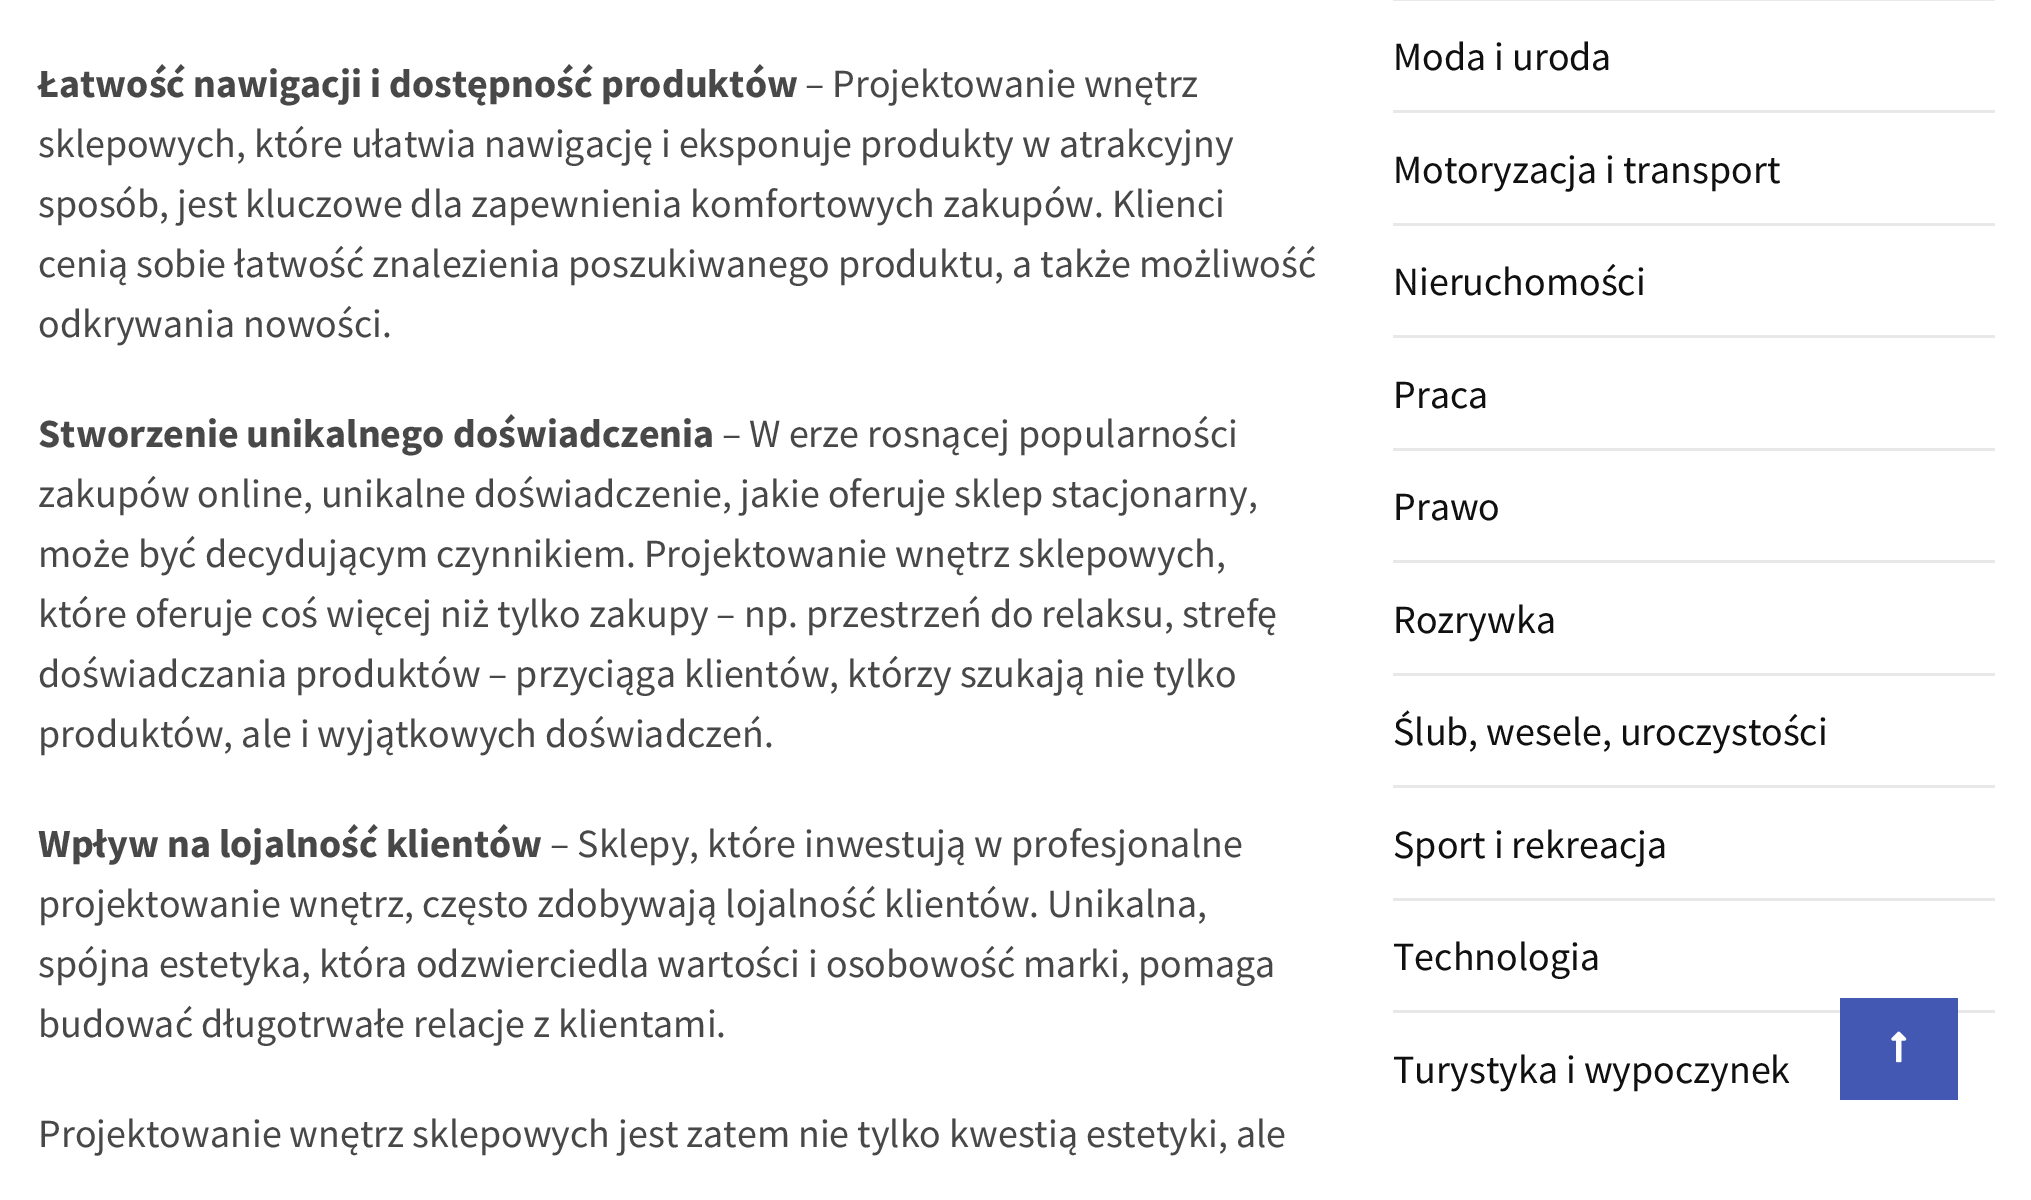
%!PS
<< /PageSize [2031 1200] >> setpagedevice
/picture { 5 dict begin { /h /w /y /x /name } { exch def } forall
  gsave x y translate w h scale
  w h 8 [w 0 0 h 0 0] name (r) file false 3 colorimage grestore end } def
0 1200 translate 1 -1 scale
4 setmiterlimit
1 setgray
0 0 2031 1200 rectfill
/SourceSansPro-Bold [40 0 0 -40 0 0] selectfont
0.282 setgray
38 97 moveto (Łatwość nawigacji i dostępność produktów) show
/SourceSansPro-Regular [40 0 0 -40 0 0] selectfont
805 97 moveto (– Projektowanie wnętrz) show
38 157 moveto (sklepowych, które ułatwia nawigację i eksponuje produkty w atrakcyjny) show
38 217 moveto (sposób, jest kluczowe dla zapewnienia komfortowych zakupów. Klienci) show
38 277 moveto (cenią sobie łatwość znalezienia poszukiwanego produktu, a także możliwość) show
38 337 moveto (odkrywania nowości.) show
/SourceSansPro-Bold [40 0 0 -40 0 0] selectfont
38 447 moveto (Stworzenie unikalnego doświadczenia) show
/SourceSansPro-Regular [40 0 0 -40 0 0] selectfont
722 447 moveto (– W erze rosnącej popularności) show
38 507 moveto (zakupów online, unikalne doświadczenie, jakie oferuje sklep stacjonarny,) show
38 567 moveto (może być decydującym czynnikiem. Projektowanie wnętrz sklepowych,) show
38 627 moveto (które oferuje coś więcej niż tylko zakupy – np. przestrzeń do relaksu, strefę) show
38 687 moveto (doświadczania produktów – przyciąga klientów, którzy szukają nie tylko) show
38 747 moveto (produktów, ale i wyjątkowych doświadczeń.) show
/SourceSansPro-Bold [40 0 0 -40 0 0] selectfont
38 857 moveto (Wpływ na lojalność klientów) show
/SourceSansPro-Regular [40 0 0 -40 0 0] selectfont
550 857 moveto (– Sklepy, które inwestują w profesjonalne) show
38 917 moveto (projektowanie wnętrz, często zdobywają lojalność klientów. Unikalna,) show
38 977 moveto (spójna estetyka, która odzwierciedla wartości i osobowość marki, pomaga) show
38 1037 moveto (budować długotrwałe relacje z klientami.) show
38 1147 moveto (Projektowanie wnętrz sklepowych jest zatem nie tylko kwestią estetyki, ale) show
0.91 setgray
1393 0 602 1 rectfill
0.063 setgray
1393 70 moveto (Moda i uroda) show
0.91 setgray
1393 110 602 3 rectfill
0.063 setgray
1393 183 moveto (Motoryzacja i transport) show
0.91 setgray
1393 223 602 3 rectfill
0.063 setgray
1393 295 moveto (Nieruchomości) show
0.91 setgray
1393 335 602 3 rectfill
0.063 setgray
1393 408 moveto (Praca) show
0.91 setgray
1393 448 602 3 rectfill
0.063 setgray
1393 520 moveto (Prawo) show
0.91 setgray
1393 560 602 3 rectfill
0.063 setgray
1393 633 moveto (Rozrywka) show
0.91 setgray
1393 673 602 3 rectfill
0.063 setgray
1393 745 moveto (Ślub, wesele, uroczystości) show
0.91 setgray
1393 785 602 3 rectfill
0.063 setgray
1393 858 moveto (Sport i rekreacja) show
0.91 setgray
1393 898 602 3 rectfill
0.063 setgray
1393 970 moveto (Technologia) show
0.91 setgray
1393 1010 602 3 rectfill
0.063 setgray
1393 1083 moveto (Turystyka i wypoczynek) show
0.263 0.345 0.698 setrgbcolor
1840 998 118 102 rectfill
(img1.rgb) 1891 1031 16 32 picture
showpage
